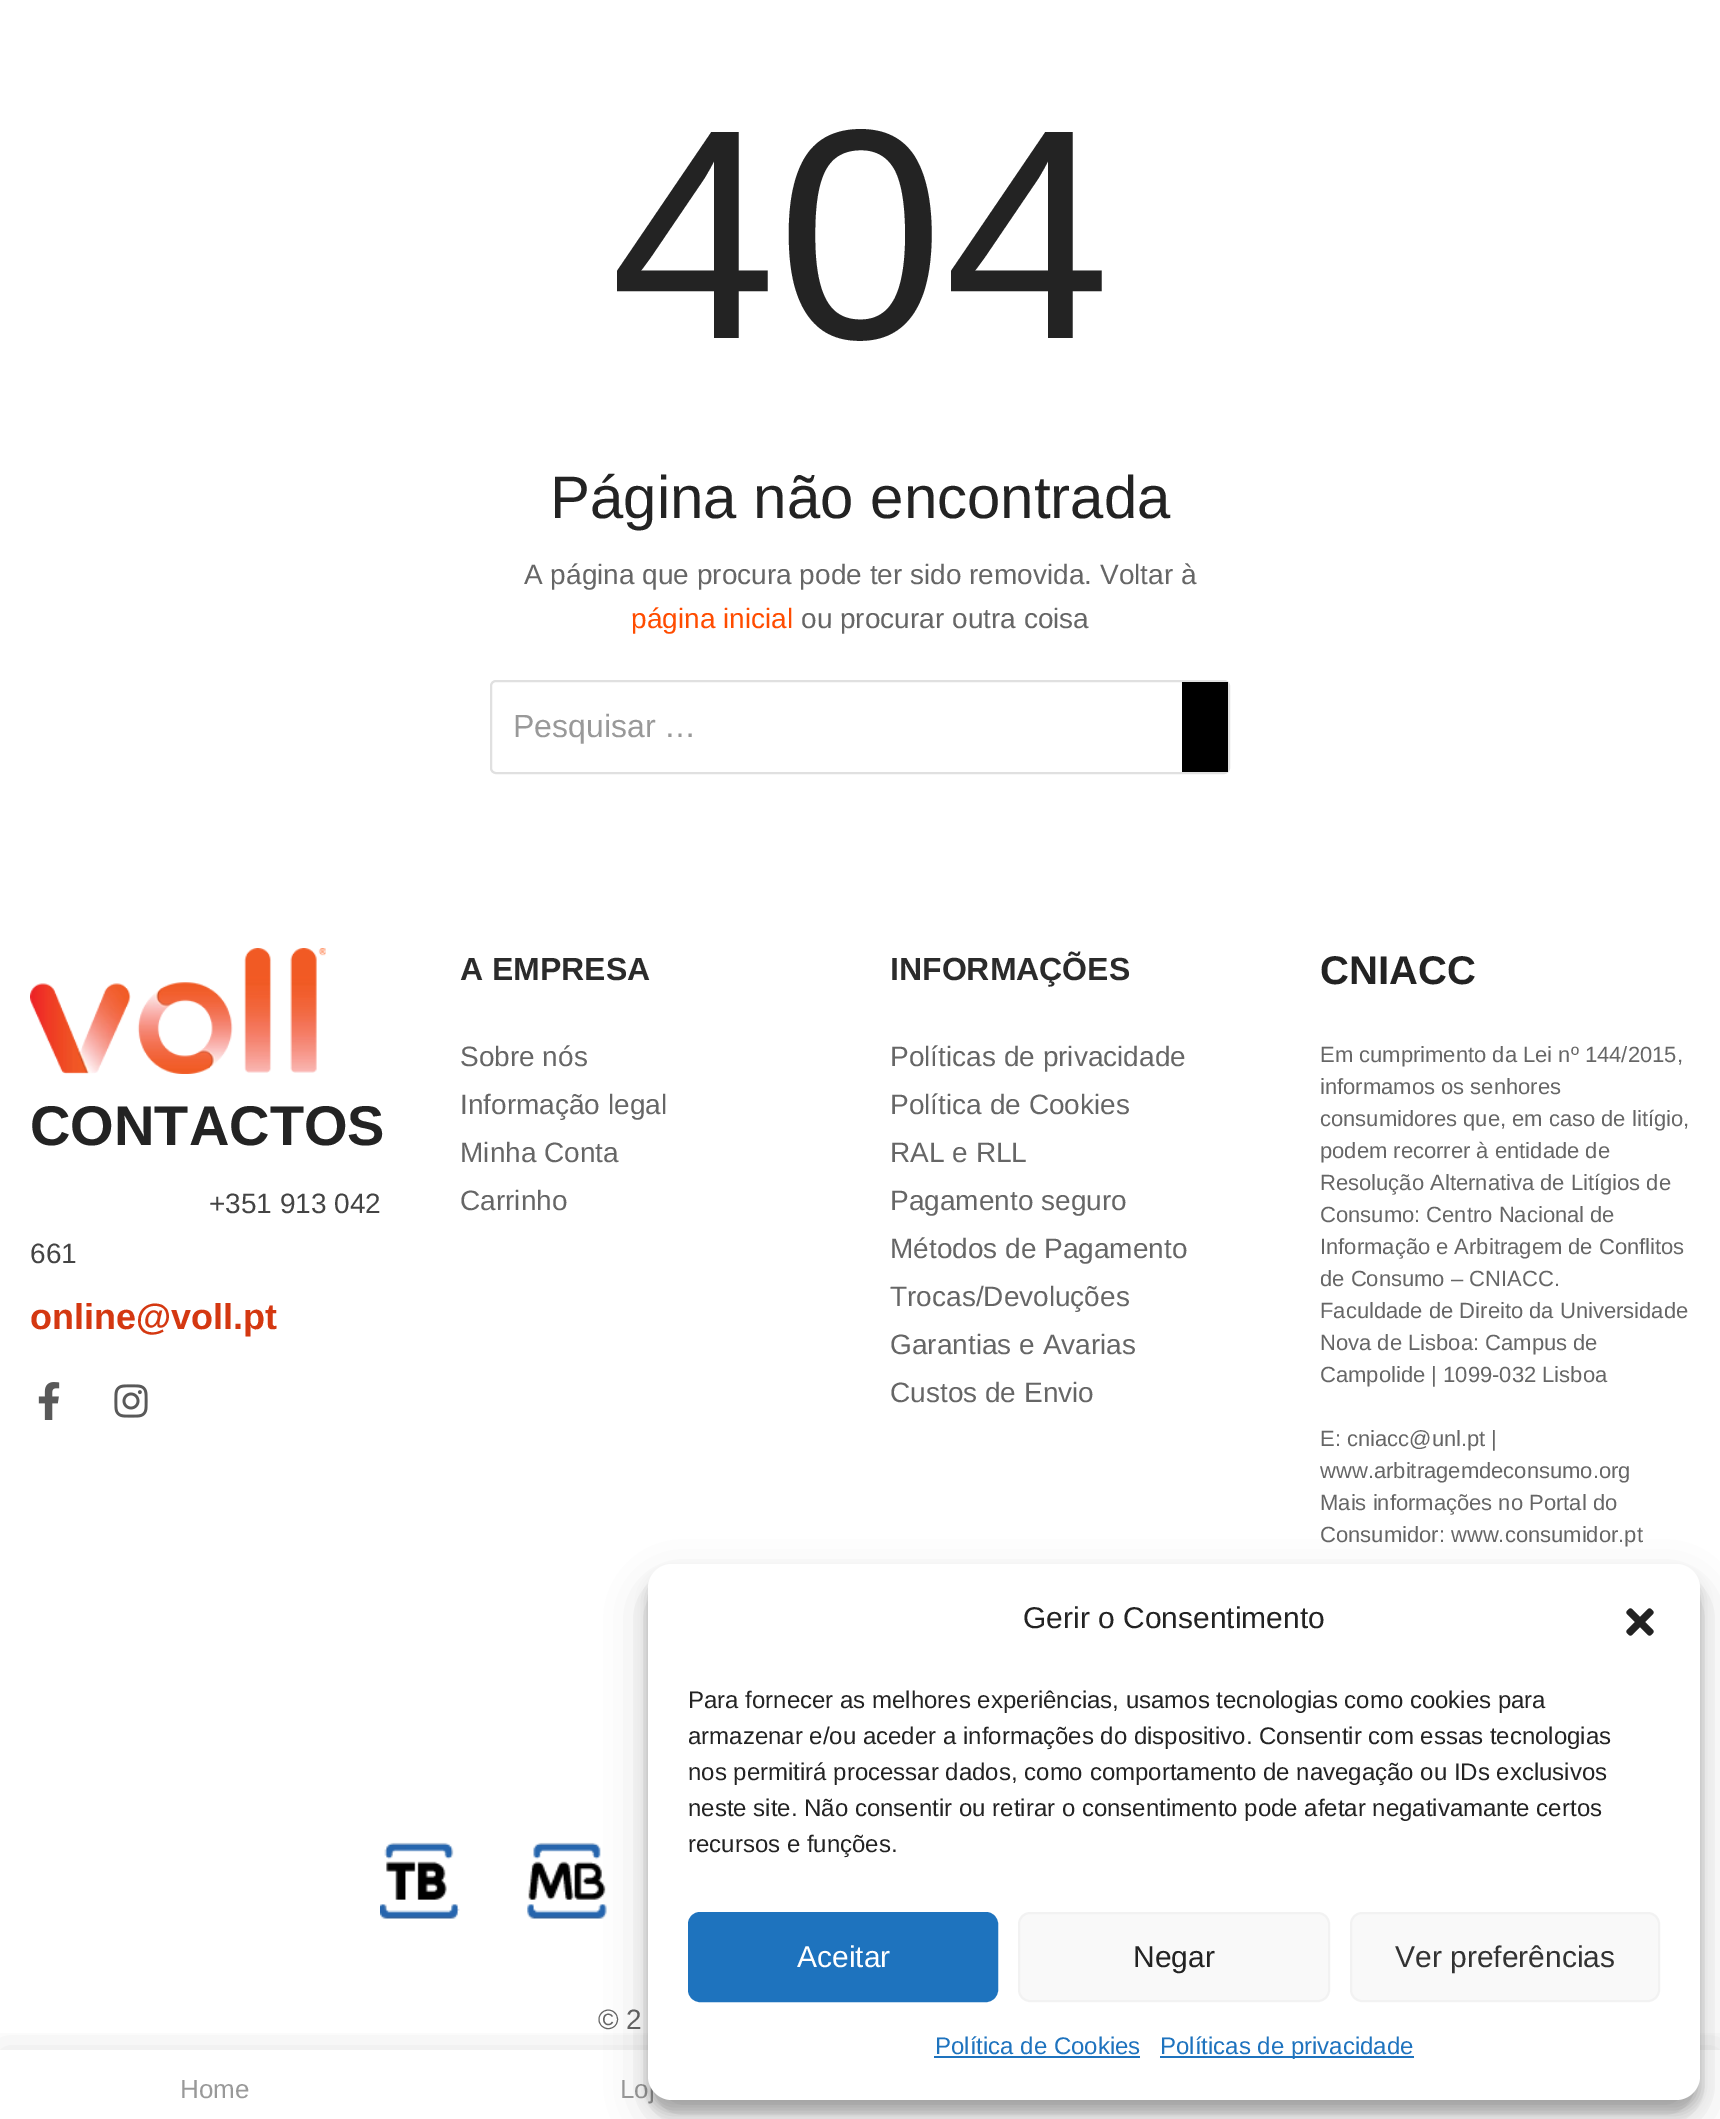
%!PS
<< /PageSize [1720 2119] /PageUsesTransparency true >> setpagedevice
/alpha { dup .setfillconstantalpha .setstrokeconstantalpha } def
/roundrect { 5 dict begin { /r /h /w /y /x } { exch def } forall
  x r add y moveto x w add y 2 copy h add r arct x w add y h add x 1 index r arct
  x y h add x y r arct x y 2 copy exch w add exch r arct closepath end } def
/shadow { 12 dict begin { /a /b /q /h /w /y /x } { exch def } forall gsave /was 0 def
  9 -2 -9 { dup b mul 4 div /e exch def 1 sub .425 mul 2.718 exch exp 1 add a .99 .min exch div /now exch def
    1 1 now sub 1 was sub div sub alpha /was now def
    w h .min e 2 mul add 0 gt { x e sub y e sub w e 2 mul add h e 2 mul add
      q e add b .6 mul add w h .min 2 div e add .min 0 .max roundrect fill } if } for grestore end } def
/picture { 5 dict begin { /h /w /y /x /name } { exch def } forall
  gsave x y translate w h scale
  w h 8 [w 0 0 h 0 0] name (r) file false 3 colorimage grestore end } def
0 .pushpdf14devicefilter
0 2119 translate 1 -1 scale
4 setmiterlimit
1 setgray
0 0 1720 2119 rectfill
/LiberationSans-Regular [300 0 0 -300 0 0] selectfont
0.137 setgray
610 338 moveto (404) show
/LiberationSans-Regular [60 0 0 -60 0 0] selectfont
550 518 moveto (Página não encontrada) show
/LiberationSans-Regular [28 0 0 -28 0 0] selectfont
0.4 setgray
524 584 moveto (A página que procura pode ter sido removida. Voltar à) show
1 0.298 0 setrgbcolor
631 628 moveto (página inicial) show
0.4 setgray
801 628 moveto (ou procurar outra coisa) show
0.878 setgray
2 setlinewidth
491 681 738 92 5 roundrect stroke
/LiberationSans-Regular [32 0 0 -32 0 0] selectfont
0.6 setgray
513 737 moveto (Pesquisar …) show
0 setgray
1182 682 46 90 rectfill
(img1.rgb) 30 948 296 126 picture
/LiberationSans-Bold [56 0 0 -56 0 0] selectfont
0.137 setgray
30 1145 moveto (CONTACTOS) show
/LiberationSans-Regular [28 0 0 -28 0 0] selectfont
0.267 setgray
209 1213 moveto (+351 913 042) show
30 1263 moveto (661) show
/LiberationSans-Bold [36 0 0 -36 0 0] selectfont
0.831 0.22 0.067 setrgbcolor
30 1329 moveto (online@voll.pt) show
(img2.rgb) 38 1382 22 38 picture
(img3.rgb) 114 1384 34 34 picture
/LiberationSans-Bold [32 0 0 -32 0 0] selectfont
0.169 setgray
460 980 moveto (A EMPRESA) show
/LiberationSans-Regular [28 0 0 -28 0 0] selectfont
0.4 setgray
460 1066 moveto (Sobre nós) show
460 1114 moveto (Informação legal) show
460 1162 moveto (Minha Conta) show
460 1210 moveto (Carrinho) show
/LiberationSans-Bold [32 0 0 -32 0 0] selectfont
0.169 setgray
890 980 moveto (INFORMAÇÕES) show
/LiberationSans-Regular [28 0 0 -28 0 0] selectfont
0.4 setgray
890 1066 moveto (Políticas de privacidade) show
890 1114 moveto (Política de Cookies) show
890 1162 moveto (RAL e RLL) show
890 1210 moveto (Pagamento seguro) show
890 1258 moveto (Métodos de Pagamento) show
890 1306 moveto (Trocas/Devoluções) show
890 1354 moveto (Garantias e Avarias) show
890 1402 moveto (Custos de Envio) show
/LiberationSans-Bold [40 0 0 -40 0 0] selectfont
0.137 setgray
1320 984 moveto (CNIACC) show
/LiberationSans-Regular [22 0 0 -22 0 0] selectfont
0.4 setgray
1320 1062 moveto (Em cumprimento da Lei nº 144/2015,) show
1320 1094 moveto (informamos os senhores) show
1320 1126 moveto (consumidores que, em caso de litígio,) show
1320 1158 moveto (podem recorrer à entidade de) show
1320 1190 moveto (Resolução Alternativa de Litígios de) show
1320 1222 moveto (Consumo: Centro Nacional de) show
1320 1254 moveto (Informação e Arbitragem de Conflitos) show
1320 1286 moveto (de Consumo – CNIACC.) show
1320 1318 moveto (Faculdade de Direito da Universidade) show
1320 1350 moveto (Nova de Lisboa: Campus de) show
1320 1382 moveto (Campolide | 1099-032 Lisboa) show
1320 1446 moveto (E: cniacc@unl.pt |) show
1320 1478 moveto (www.arbitragemdeconsumo.org) show
1320 1510 moveto (Mais informações no Portal do) show
1320 1542 moveto (Consumidor: www.consumidor.pt) show
(img4.rgb) 380 1842 227 77 picture
/LiberationSans-Regular [28 0 0 -28 0 0] selectfont
598 2029 moveto (© 2) show
gsave
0 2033 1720 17 rectclip
0 setgray
0 2050 1720 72 0 20 0.1 shadow
grestore
/LiberationSans-Regular [26 0 0 -26 0 0] selectfont
0.6 setgray
180 2098 moveto (Home) show
620 2098 moveto (Loj) show
0 setgray
648 1576 1052 536 24 6 0.23 shadow
648 1584 1052 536 24 20 0.19 shadow
1 setgray
648 1564 1052 536 24 roundrect fill
/LiberationSans-Regular [30 0 0 -30 0 0] selectfont
0.137 setgray
1023 1628 moveto (Gerir o Consentimento) show
(img5.rgb) 1626 1608 28 28 picture
/LiberationSans-Regular [24 0 0 -24 0 0] selectfont
688 1708 moveto (Para fornecer as melhores experiências, usamos tecnologias como cookies para) show
688 1744 moveto (armazenar e/ou aceder a informações do dispositivo. Consentir com essas tecnologias) show
688 1780 moveto (nos permitirá processar dados, como comportamento de navegação ou IDs exclusivos) show
688 1816 moveto (neste site. Não consentir ou retirar o consentimento pode afetar negativamante certos) show
688 1852 moveto (recursos e funções.) show
0.118 0.451 0.745 setrgbcolor
689 1913 308 88 11 roundrect gsave fill grestore
stroke
/LiberationSans-Regular [30 0 0 -30 0 0] selectfont
1 setgray
797 1967 moveto (Aceitar) show
0.976 setgray
1019 1913 310 88 11 roundrect gsave fill grestore
0.949 setgray
stroke
0.137 setgray
1133 1967 moveto (Negar) show
0.976 setgray
1351 1913 308 88 11 roundrect gsave fill grestore
0.949 setgray
stroke
0.2 setgray
1395 1967 moveto (Ver preferências) show
/LiberationSans-Regular [24 0 0 -24 0 0] selectfont
0.118 0.451 0.745 setrgbcolor
935 2054 moveto (Política de Cookies) show
934 2056 206 2 rectfill
1160 2056 254 2 rectfill
1160 2054 moveto (Políticas de privacidade) show
.poppdf14devicefilter showpage
